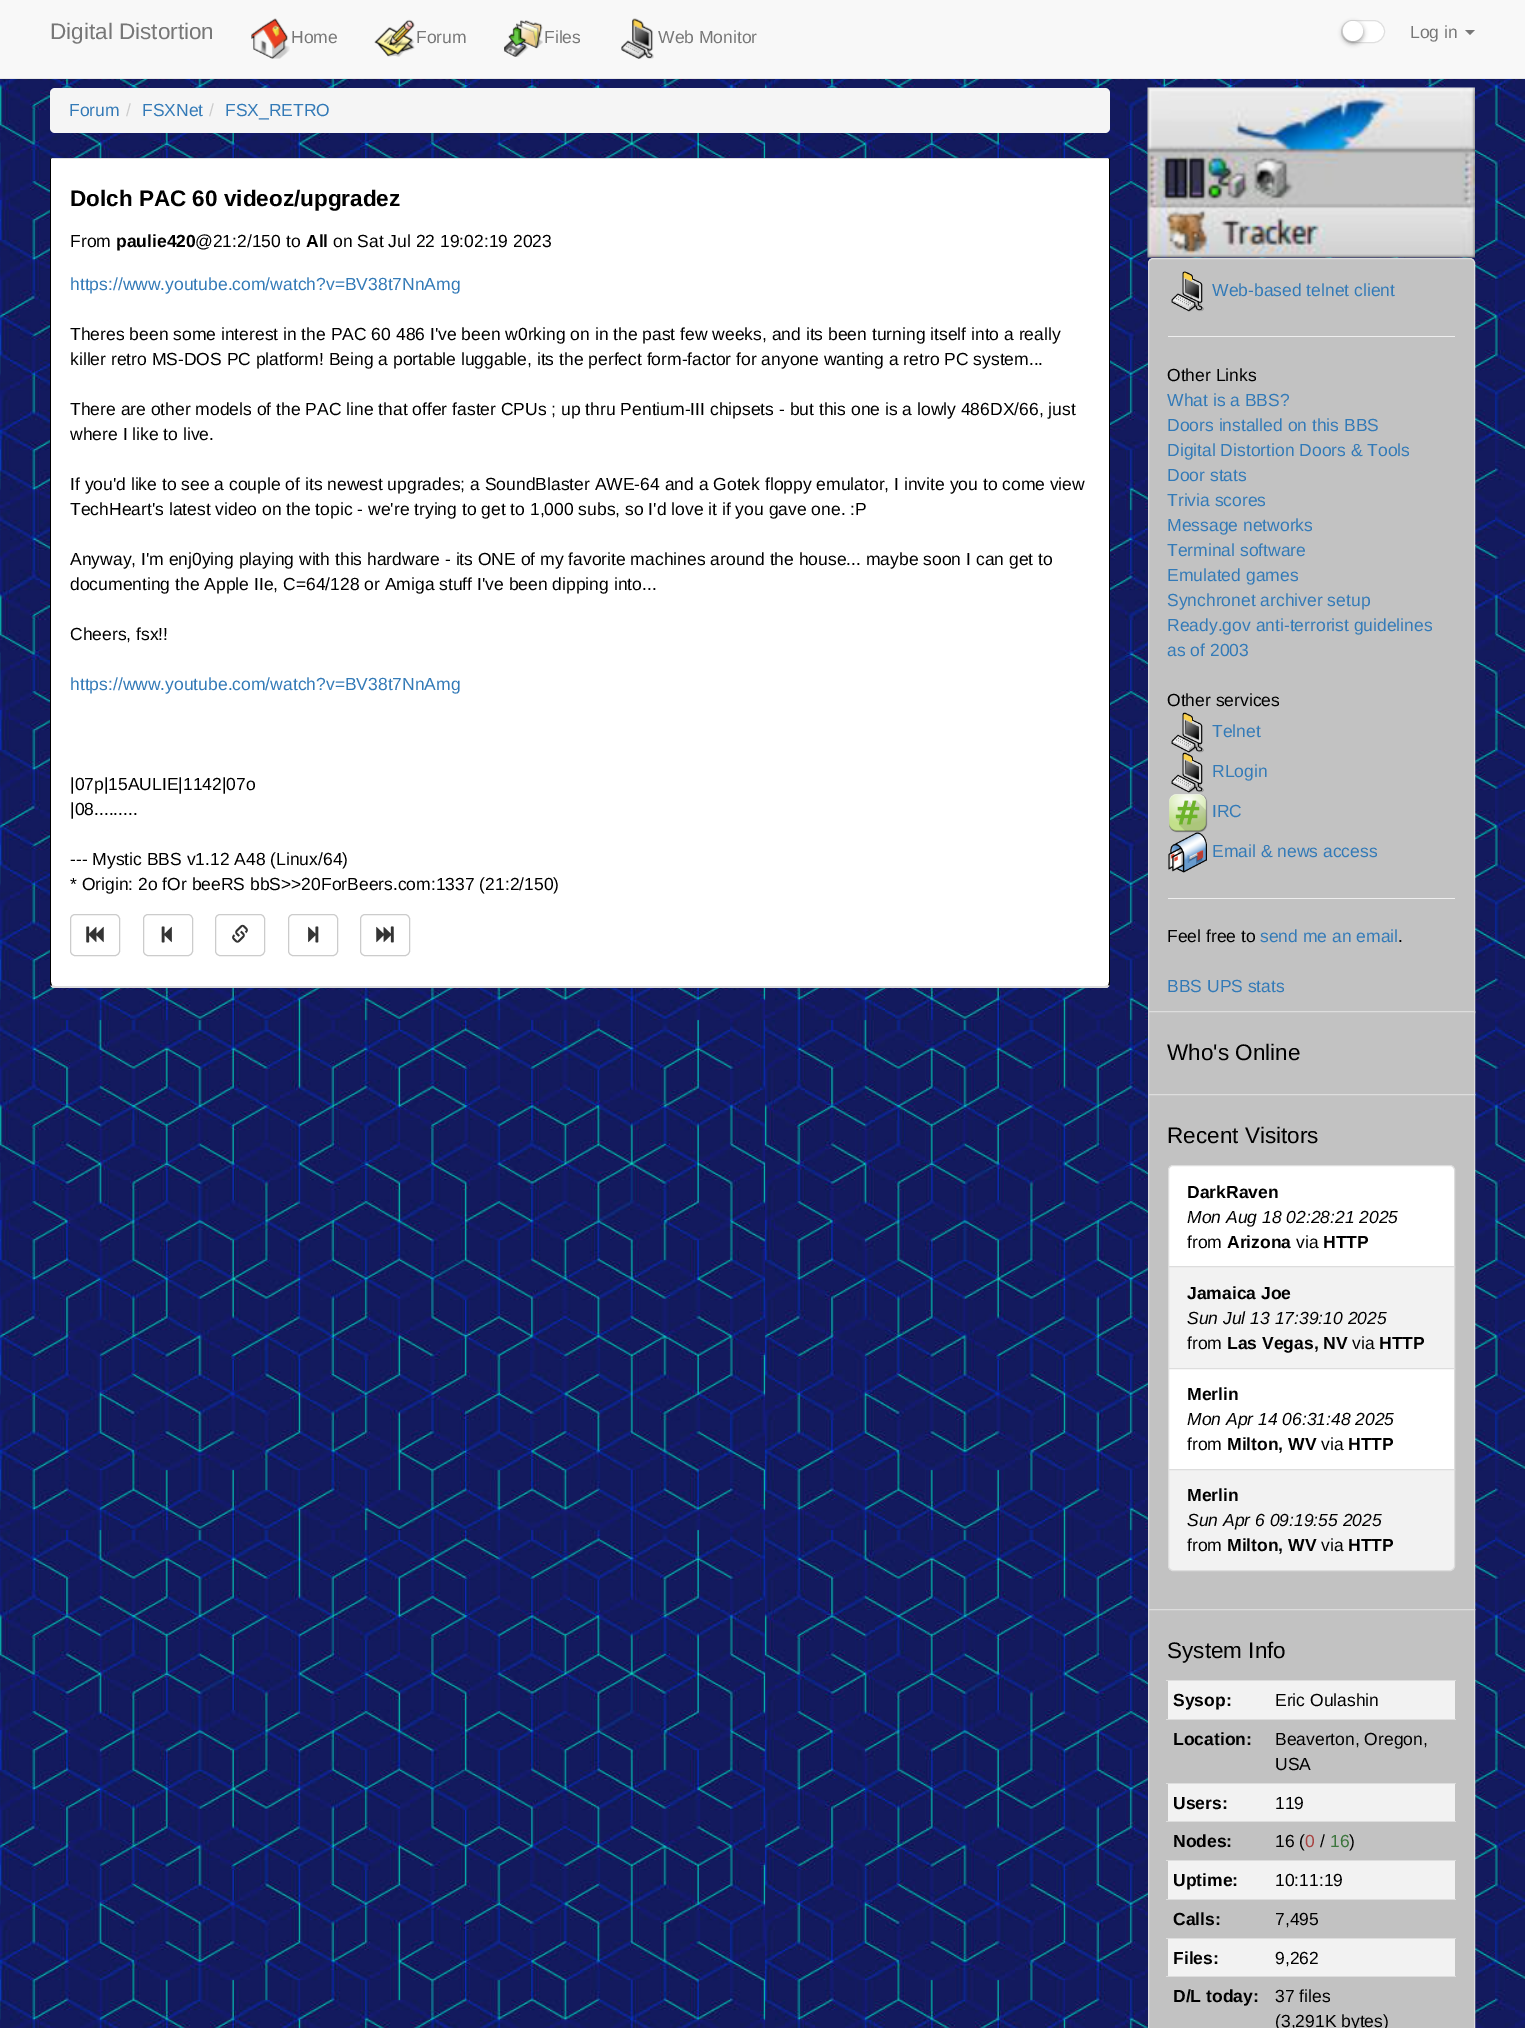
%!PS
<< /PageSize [1525 2028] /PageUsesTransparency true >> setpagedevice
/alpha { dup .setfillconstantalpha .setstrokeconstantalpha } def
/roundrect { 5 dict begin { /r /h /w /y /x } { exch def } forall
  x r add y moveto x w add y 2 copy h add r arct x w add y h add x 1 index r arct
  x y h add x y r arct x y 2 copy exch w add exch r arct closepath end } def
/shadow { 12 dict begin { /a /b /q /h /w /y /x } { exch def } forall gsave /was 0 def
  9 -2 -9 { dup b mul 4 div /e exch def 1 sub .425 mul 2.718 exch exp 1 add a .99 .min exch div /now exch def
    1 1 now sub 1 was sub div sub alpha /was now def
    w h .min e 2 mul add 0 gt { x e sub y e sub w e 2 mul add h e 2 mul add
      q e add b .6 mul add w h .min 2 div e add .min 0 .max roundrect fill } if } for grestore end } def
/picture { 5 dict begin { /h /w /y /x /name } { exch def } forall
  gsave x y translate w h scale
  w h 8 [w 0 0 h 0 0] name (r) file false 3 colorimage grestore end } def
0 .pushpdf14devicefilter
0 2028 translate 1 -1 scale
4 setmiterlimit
1 setgray
0 0 1525 2028 rectfill
(img1.rgb) 0 79 1525 1949 picture
0.973 setgray
0 0 1525 78 rectfill
0.906 setgray
0 78 1525 1 rectfill
/LiberationSans-Regular [22.5 0 0 -22.5 0 0] selectfont
0.467 setgray
50 39 moveto (Digital Distortion) show
(img2.rgb) 251 18 39 41 picture
/LiberationSans-Regular [17.5 0 0 -17.5 0 0] selectfont
291 43 moveto (Home) show
(img3.rgb) 374 19 41 38 picture
416 43 moveto (Forum) show
(img4.rgb) 504 20 39 37 picture
544 43 moveto (Files) show
(img5.rgb) 621 18 33 41 picture
658 43 moveto (Web Monitor) show
1 setgray
1341.5 20.5 43 22 11 roundrect gsave fill grestore
0.875 setgray
stroke
0 setgray
1343 23 20 20 10 2.5 0.4 shadow
1 setgray
newpath 1353 31 10 0 360 arc closepath fill
0.467 setgray
1410 38 moveto (Log in) show
newpath 1465 30 moveto 1475 30 lineto 1470 35 lineto closepath fill
0.961 setgray
50 88 1060 45 5 roundrect fill
0.2 0.478 0.718 setrgbcolor
69 116 moveto (Forum) show
0.8 setgray
126 116 moveto (/) show
0.2 0.478 0.718 setrgbcolor
142 116 moveto (FSXNet) show
0.8 setgray
209 116 moveto (/) show
0.2 0.478 0.718 setrgbcolor
225 116 moveto (FSX_RETRO) show
1 setgray
newpath 50 158 moveto 1110 158 lineto 1110 983 lineto 1110 986 1108 988 1105 988 curveto 55 988 lineto 52 988 50 986 50 983 curveto closepath fill
0.867 setgray
newpath 1110 158 moveto 50 158 lineto 52 159 lineto 1108 159 lineto closepath fill
0 setgray
newpath 1110 982 moveto 1110 158 lineto 1108 159 lineto 1109 159 lineto 1109 982 lineto 1109 984 1108 985 1108 985 curveto 1109 986 lineto 1110 985 1110 984 1110 982 curveto closepath fill
0.867 setgray
newpath 53 988 moveto 51 986 lineto 52 985 lineto 55 986 lineto 1105 986 lineto 1108 985 lineto 1109 986 lineto 1107 988 lineto closepath fill
0 setgray
newpath 51 159 moveto 51 982 lineto 51 984 52 985 52 985 curveto 51 986 lineto 50 985 50 984 50 982 curveto 50 158 lineto 52 159 lineto closepath fill
/LiberationSans-Bold [22.5 0 0 -22.5 0 0] selectfont
70 206 moveto (Dolch PAC 60 videoz/upgradez) show
/LiberationSans-Regular [17.5 0 0 -17.5 0 0] selectfont
70 247 moveto (From) show
/LiberationSans-Bold [17.5 0 0 -17.5 0 0] selectfont
116 247 moveto (paulie420) show
/LiberationSans-Regular [17.5 0 0 -17.5 0 0] selectfont
195 247 moveto (@21:2/150 to) show
/LiberationSans-Bold [17.5 0 0 -17.5 0 0] selectfont
306 247 moveto (All) show
/LiberationSans-Regular [17.5 0 0 -17.5 0 0] selectfont
333 247 moveto (on Sat Jul 22 19:02:19 2023) show
0.2 0.478 0.718 setrgbcolor
70 290 moveto (https://www.youtube.com/watch?v=BV38t7NnAmg) show
0 setgray
70 340 moveto (Theres been some interest in the PAC 60 486 I've been w0rking on in the past few weeks, and its been turning itself into a really) show
70 365 moveto (killer retro MS-DOS PC platform! Being a portable luggable, its the perfect form-factor for anyone wanting a retro PC system...) show
70 415 moveto (There are other models of the PAC line that offer faster CPUs ; up thru Pentium-III chipsets - but this one is a lowly 486DX/66, just) show
70 440 moveto (where I like to live.) show
70 490 moveto (If you'd like to see a couple of its newest upgrades; a SoundBlaster AWE-64 and a Gotek floppy emulator, I invite you to come view) show
70 515 moveto (TechHeart's latest video on the topic - we're trying to get to 1,000 subs, so I'd love it if you gave one. :P) show
70 565 moveto (Anyway, I'm enj0ying playing with this hardware - its ONE of my favorite machines around the house... maybe soon I can get to) show
70 590 moveto (documenting the Apple IIe, C=64/128 or Amiga stuff I've been dipping into...) show
70 640 moveto (Cheers, fsx!!) show
0.2 0.478 0.718 setrgbcolor
70 690 moveto (https://www.youtube.com/watch?v=BV38t7NnAmg) show
0 setgray
70 790 moveto (|07p|15AULIE|1142|07o) show
70 815 moveto (|08.........) show
70 865 moveto (--- Mystic BBS v1.12 A48 \(Linux/64\)) show
70 890 moveto (* Origin: 2o fOr beeRS bbS>>20ForBeers.com:1337 \(21:2/150\)) show
0.8 setgray
70.5 914.5 49 41 4.5 roundrect stroke
(img6.rgb) 86 926 18 17 picture
143.5 914.5 49 41 4.5 roundrect stroke
(img7.rgb) 161 926 11 17 picture
215.5 914.5 49 41 4.5 roundrect stroke
(img8.rgb) 232 924 16 19 picture
288.5 914.5 49 41 4.5 roundrect stroke
(img9.rgb) 308 926 11 17 picture
360.5 914.5 49 41 4.5 roundrect stroke
(img10.rgb) 376 926 18 17 picture
(img11.rgb) 1147 87 328 171 picture
0.761 setgray
newpath 1153 258.5 moveto 1470 258.5 lineto 1472.5 258.5 1474.5 260.5 1474.5 263 curveto 1474.5 1012.5 lineto 1148.5 1012.5 lineto 1148.5 263 lineto 1148.5 260.5 1150.5 258.5 1153 258.5 curveto closepath gsave fill grestore
0.867 setgray
stroke
(img12.rgb) 1171 271 33 41 picture
0.2 0.478 0.718 setrgbcolor
1212 296 moveto (Web-based telnet client) show
0.933 setgray
1168 336 287 1 rectfill
0 setgray
1167 381 moveto (Other Links) show
0.2 0.478 0.718 setrgbcolor
1167 406 moveto (What is a BBS?) show
1167 431 moveto (Doors installed on this BBS) show
1167 456 moveto (Digital Distortion Doors & Tools) show
1167 481 moveto (Door stats) show
1167 506 moveto (Trivia scores) show
1167 531 moveto (Message networks) show
1167 556 moveto (Terminal software) show
1167 581 moveto (Emulated games) show
1167 606 moveto (Synchronet archiver setup) show
1167 631 moveto (Ready.gov anti-terrorist guidelines) show
1167 656 moveto (as of 2003) show
0 setgray
1167 706 moveto (Other services) show
(img13.rgb) 1171 712 33 41 picture
0.2 0.478 0.718 setrgbcolor
1212 737 moveto (Telnet) show
(img14.rgb) 1171 752 33 41 picture
1212 777 moveto (RLogin) show
(img15.rgb) 1169 794 39 39 picture
1212 817 moveto (IRC) show
(img16.rgb) 1168 832 39 41 picture
1212 857 moveto (Email & news access) show
0.933 setgray
1168 898 287 1 rectfill
0 setgray
1167 942 moveto (Feel free to) show
0.2 0.478 0.718 setrgbcolor
1260 942 moveto (send me an email) show
0 setgray
1398 942 moveto (.) show
0.2 0.478 0.718 setrgbcolor
1167 992 moveto (BBS UPS stats) show
0.761 setgray
newpath 1148.5 1011.5 moveto 1474.5 1011.5 lineto 1474.5 1094.5 lineto 1148.5 1094.5 lineto closepath gsave fill grestore
0.867 setgray
stroke
/LiberationSans-Regular [22.5 0 0 -22.5 0 0] selectfont
0 setgray
1167 1060 moveto (Who's Online) show
0.761 setgray
newpath 1148.5 1094.5 moveto 1474.5 1094.5 lineto 1474.5 1609.5 lineto 1148.5 1609.5 lineto closepath gsave fill grestore
0.867 setgray
stroke
0 setgray
1167 1143 moveto (Recent Visitors) show
1 setgray
newpath 1173 1165.5 moveto 1450 1165.5 lineto 1452.5 1165.5 1454.5 1167.5 1454.5 1170 curveto 1454.5 1267.5 lineto 1168.5 1267.5 lineto 1168.5 1170 lineto 1168.5 1167.5 1170.5 1165.5 1173 1165.5 curveto closepath gsave fill grestore
0.867 setgray
stroke
/LiberationSans-Bold [17.5 0 0 -17.5 0 0] selectfont
0 setgray
1187 1198 moveto (DarkRaven) show
/LiberationSans-Italic [17.5 0 0 -17.5 0 0] selectfont
1187 1223 moveto (Mon Aug 18 02:28:21 2025) show
/LiberationSans-Regular [17.5 0 0 -17.5 0 0] selectfont
1187 1248 moveto (from) show
/LiberationSans-Bold [17.5 0 0 -17.5 0 0] selectfont
1227 1248 moveto (Arizona) show
/LiberationSans-Regular [17.5 0 0 -17.5 0 0] selectfont
1296 1248 moveto (via) show
/LiberationSans-Bold [17.5 0 0 -17.5 0 0] selectfont
1323 1248 moveto (HTTP) show
0.949 setgray
newpath 1168.5 1266.5 moveto 1454.5 1266.5 lineto 1454.5 1368.5 lineto 1168.5 1368.5 lineto closepath gsave fill grestore
0.867 setgray
stroke
0 setgray
1187 1299 moveto (Jamaica Joe) show
/LiberationSans-Italic [17.5 0 0 -17.5 0 0] selectfont
1187 1324 moveto (Sun Jul 13 17:39:10 2025) show
/LiberationSans-Regular [17.5 0 0 -17.5 0 0] selectfont
1187 1349 moveto (from) show
/LiberationSans-Bold [17.5 0 0 -17.5 0 0] selectfont
1227 1349 moveto (Las Vegas, NV) show
/LiberationSans-Regular [17.5 0 0 -17.5 0 0] selectfont
1352 1349 moveto (via) show
/LiberationSans-Bold [17.5 0 0 -17.5 0 0] selectfont
1379 1349 moveto (HTTP) show
1 setgray
newpath 1168.5 1368.5 moveto 1454.5 1368.5 lineto 1454.5 1469.5 lineto 1168.5 1469.5 lineto closepath gsave fill grestore
0.867 setgray
stroke
0 setgray
1187 1400 moveto (Merlin) show
/LiberationSans-Italic [17.5 0 0 -17.5 0 0] selectfont
1187 1425 moveto (Mon Apr 14 06:31:48 2025) show
/LiberationSans-Regular [17.5 0 0 -17.5 0 0] selectfont
1187 1450 moveto (from) show
/LiberationSans-Bold [17.5 0 0 -17.5 0 0] selectfont
1227 1450 moveto (Milton, WV) show
/LiberationSans-Regular [17.5 0 0 -17.5 0 0] selectfont
1321 1450 moveto (via) show
/LiberationSans-Bold [17.5 0 0 -17.5 0 0] selectfont
1348 1450 moveto (HTTP) show
0.949 setgray
newpath 1168.5 1469.5 moveto 1454.5 1469.5 lineto 1454.5 1566 lineto 1454.5 1568.5 1452.5 1570.5 1450 1570.5 curveto 1173 1570.5 lineto 1170.5 1570.5 1168.5 1568.5 1168.5 1566 curveto closepath gsave fill grestore
0.867 setgray
stroke
0 setgray
1187 1501 moveto (Merlin) show
/LiberationSans-Italic [17.5 0 0 -17.5 0 0] selectfont
1187 1526 moveto (Sun Apr 6 09:19:55 2025) show
/LiberationSans-Regular [17.5 0 0 -17.5 0 0] selectfont
1187 1551 moveto (from) show
/LiberationSans-Bold [17.5 0 0 -17.5 0 0] selectfont
1227 1551 moveto (Milton, WV) show
/LiberationSans-Regular [17.5 0 0 -17.5 0 0] selectfont
1321 1551 moveto (via) show
/LiberationSans-Bold [17.5 0 0 -17.5 0 0] selectfont
1348 1551 moveto (HTTP) show
0.761 setgray
newpath 1148.5 1609.5 moveto 1474.5 1609.5 lineto 1474.5 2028.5 lineto 1148.5 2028.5 lineto closepath gsave fill grestore
0.867 setgray
stroke
/LiberationSans-Regular [22.5 0 0 -22.5 0 0] selectfont
0 setgray
1167 1658 moveto (System Info) show
0.949 setgray
1168 1681 287 38 rectfill
/LiberationSans-Bold [17.5 0 0 -17.5 0 0] selectfont
0 setgray
1173 1706 moveto (Sysop:) show
0.867 setgray
1166 1680 290 1 rectfill
/LiberationSans-Regular [17.5 0 0 -17.5 0 0] selectfont
0 setgray
1275 1706 moveto (Eric Oulashin) show
/LiberationSans-Bold [17.5 0 0 -17.5 0 0] selectfont
1173 1745 moveto (Location:) show
0.867 setgray
1166 1719 290 1 rectfill
/LiberationSans-Regular [17.5 0 0 -17.5 0 0] selectfont
0 setgray
1275 1745 moveto (Beaverton, Oregon,) show
1275 1770 moveto (USA) show
0.949 setgray
1168 1784 287 37 rectfill
/LiberationSans-Bold [17.5 0 0 -17.5 0 0] selectfont
0 setgray
1173 1809 moveto (Users:) show
0.867 setgray
1166 1783 290 1 rectfill
/LiberationSans-Regular [17.5 0 0 -17.5 0 0] selectfont
0 setgray
1275 1809 moveto (119) show
/LiberationSans-Bold [17.5 0 0 -17.5 0 0] selectfont
1173 1847 moveto (Nodes:) show
0.867 setgray
1166 1821 290 1 rectfill
/LiberationSans-Regular [17.5 0 0 -17.5 0 0] selectfont
0 setgray
1275 1847 moveto (16 \() show
0.663 0.267 0.259 setrgbcolor
1305 1847 moveto (0) show
0 setgray
1320 1847 moveto (/) show
0.235 0.463 0.239 setrgbcolor
1330 1847 moveto (16) show
0 setgray
1349 1847 moveto (\)) show
0.949 setgray
1168 1861 287 38 rectfill
/LiberationSans-Bold [17.5 0 0 -17.5 0 0] selectfont
0 setgray
1173 1886 moveto (Uptime:) show
0.867 setgray
1166 1860 290 1 rectfill
/LiberationSans-Regular [17.5 0 0 -17.5 0 0] selectfont
0 setgray
1275 1886 moveto (10:11:19) show
/LiberationSans-Bold [17.5 0 0 -17.5 0 0] selectfont
1173 1925 moveto (Calls:) show
0.867 setgray
1166 1899 290 1 rectfill
/LiberationSans-Regular [17.5 0 0 -17.5 0 0] selectfont
0 setgray
1275 1925 moveto (7,495) show
0.949 setgray
1168 1939 287 37 rectfill
/LiberationSans-Bold [17.5 0 0 -17.5 0 0] selectfont
0 setgray
1173 1964 moveto (Files:) show
0.867 setgray
1166 1938 290 1 rectfill
/LiberationSans-Regular [17.5 0 0 -17.5 0 0] selectfont
0 setgray
1275 1964 moveto (9,262) show
/LiberationSans-Bold [17.5 0 0 -17.5 0 0] selectfont
1173 2002 moveto (D/L today:) show
0.867 setgray
1166 1976 290 1 rectfill
/LiberationSans-Regular [17.5 0 0 -17.5 0 0] selectfont
0 setgray
1275 2002 moveto (37 files) show
1275 2027 moveto (\(3,291K bytes\)) show
.poppdf14devicefilter showpage
